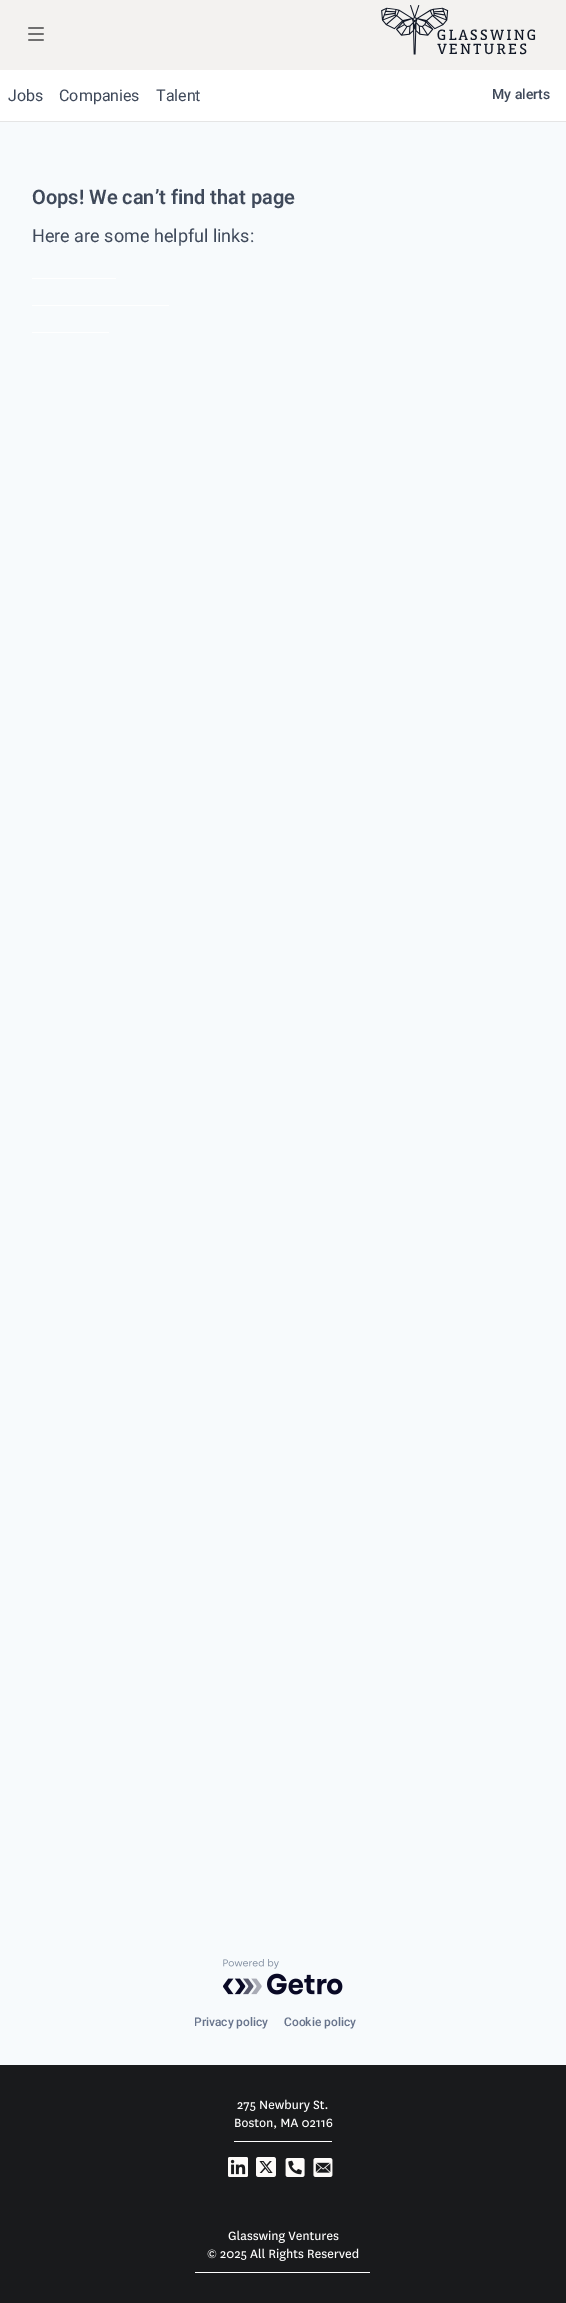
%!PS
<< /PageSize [566 2303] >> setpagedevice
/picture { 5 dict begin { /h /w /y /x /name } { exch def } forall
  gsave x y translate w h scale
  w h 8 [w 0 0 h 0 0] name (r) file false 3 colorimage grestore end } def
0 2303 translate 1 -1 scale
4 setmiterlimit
0.969 0.98 0.988 setrgbcolor
0 0 566 2303 rectfill
0.953 0.949 0.941 setrgbcolor
0 0 566 70 rectfill
(img1.rgb) 28 27 16 14 picture
(img2.rgb) 381 5 155 50 picture
0.898 setgray
0 121 566 1 rectfill
1 setgray
0 70 566 51 rectfill
/Roboto-Regular [16 0 0 -16 0 0] selectfont
0.247 0.286 0.353 setrgbcolor
8 101 moveto (Jobs) show
59 101 moveto (Companies) show
156 101 moveto (Talent) show
/Roboto-Medium [14 0 0 -14 0 0] selectfont
492 99 moveto (My alerts) show
/Roboto-SemiBold [20 0 0 -20 0 0] selectfont
32 204 moveto (Oops! We can’t find that page) show
/Roboto-Regular [18 0 0 -18 0 0] selectfont
32 242 moveto (Here are some helpful links:) show
1 setgray
32 278 84 1 rectfill
32 305 137 1 rectfill
32 332 77 1 rectfill
(img3.rgb) 223 1959 120 36 picture
/Roboto-Medium [12 0 0 -12 0 0] selectfont
0.404 0.451 0.545 setrgbcolor
194 2026 moveto (Privacy policy) show
284 2026 moveto (Cookie policy) show
0.098 0.102 0.11 setrgbcolor
0 2065 566 238 rectfill
1 setgray
234 2141 98 1 rectfill
(img4.rgb) 237 2099 91 13 picture
(img5.rgb) 235 2118 98 11 picture
(img6.rgb) 228 2157 20 20 picture
(img7.rgb) 256 2157 20 20 picture
(img8.rgb) 285 2158 20 19 picture
(img9.rgb) 313 2158 20 19 picture
195 2272 175 1 rectfill
(img10.rgb) 228 2230 111 13 picture
(img11.rgb) 207 2248 152 13 picture
showpage
